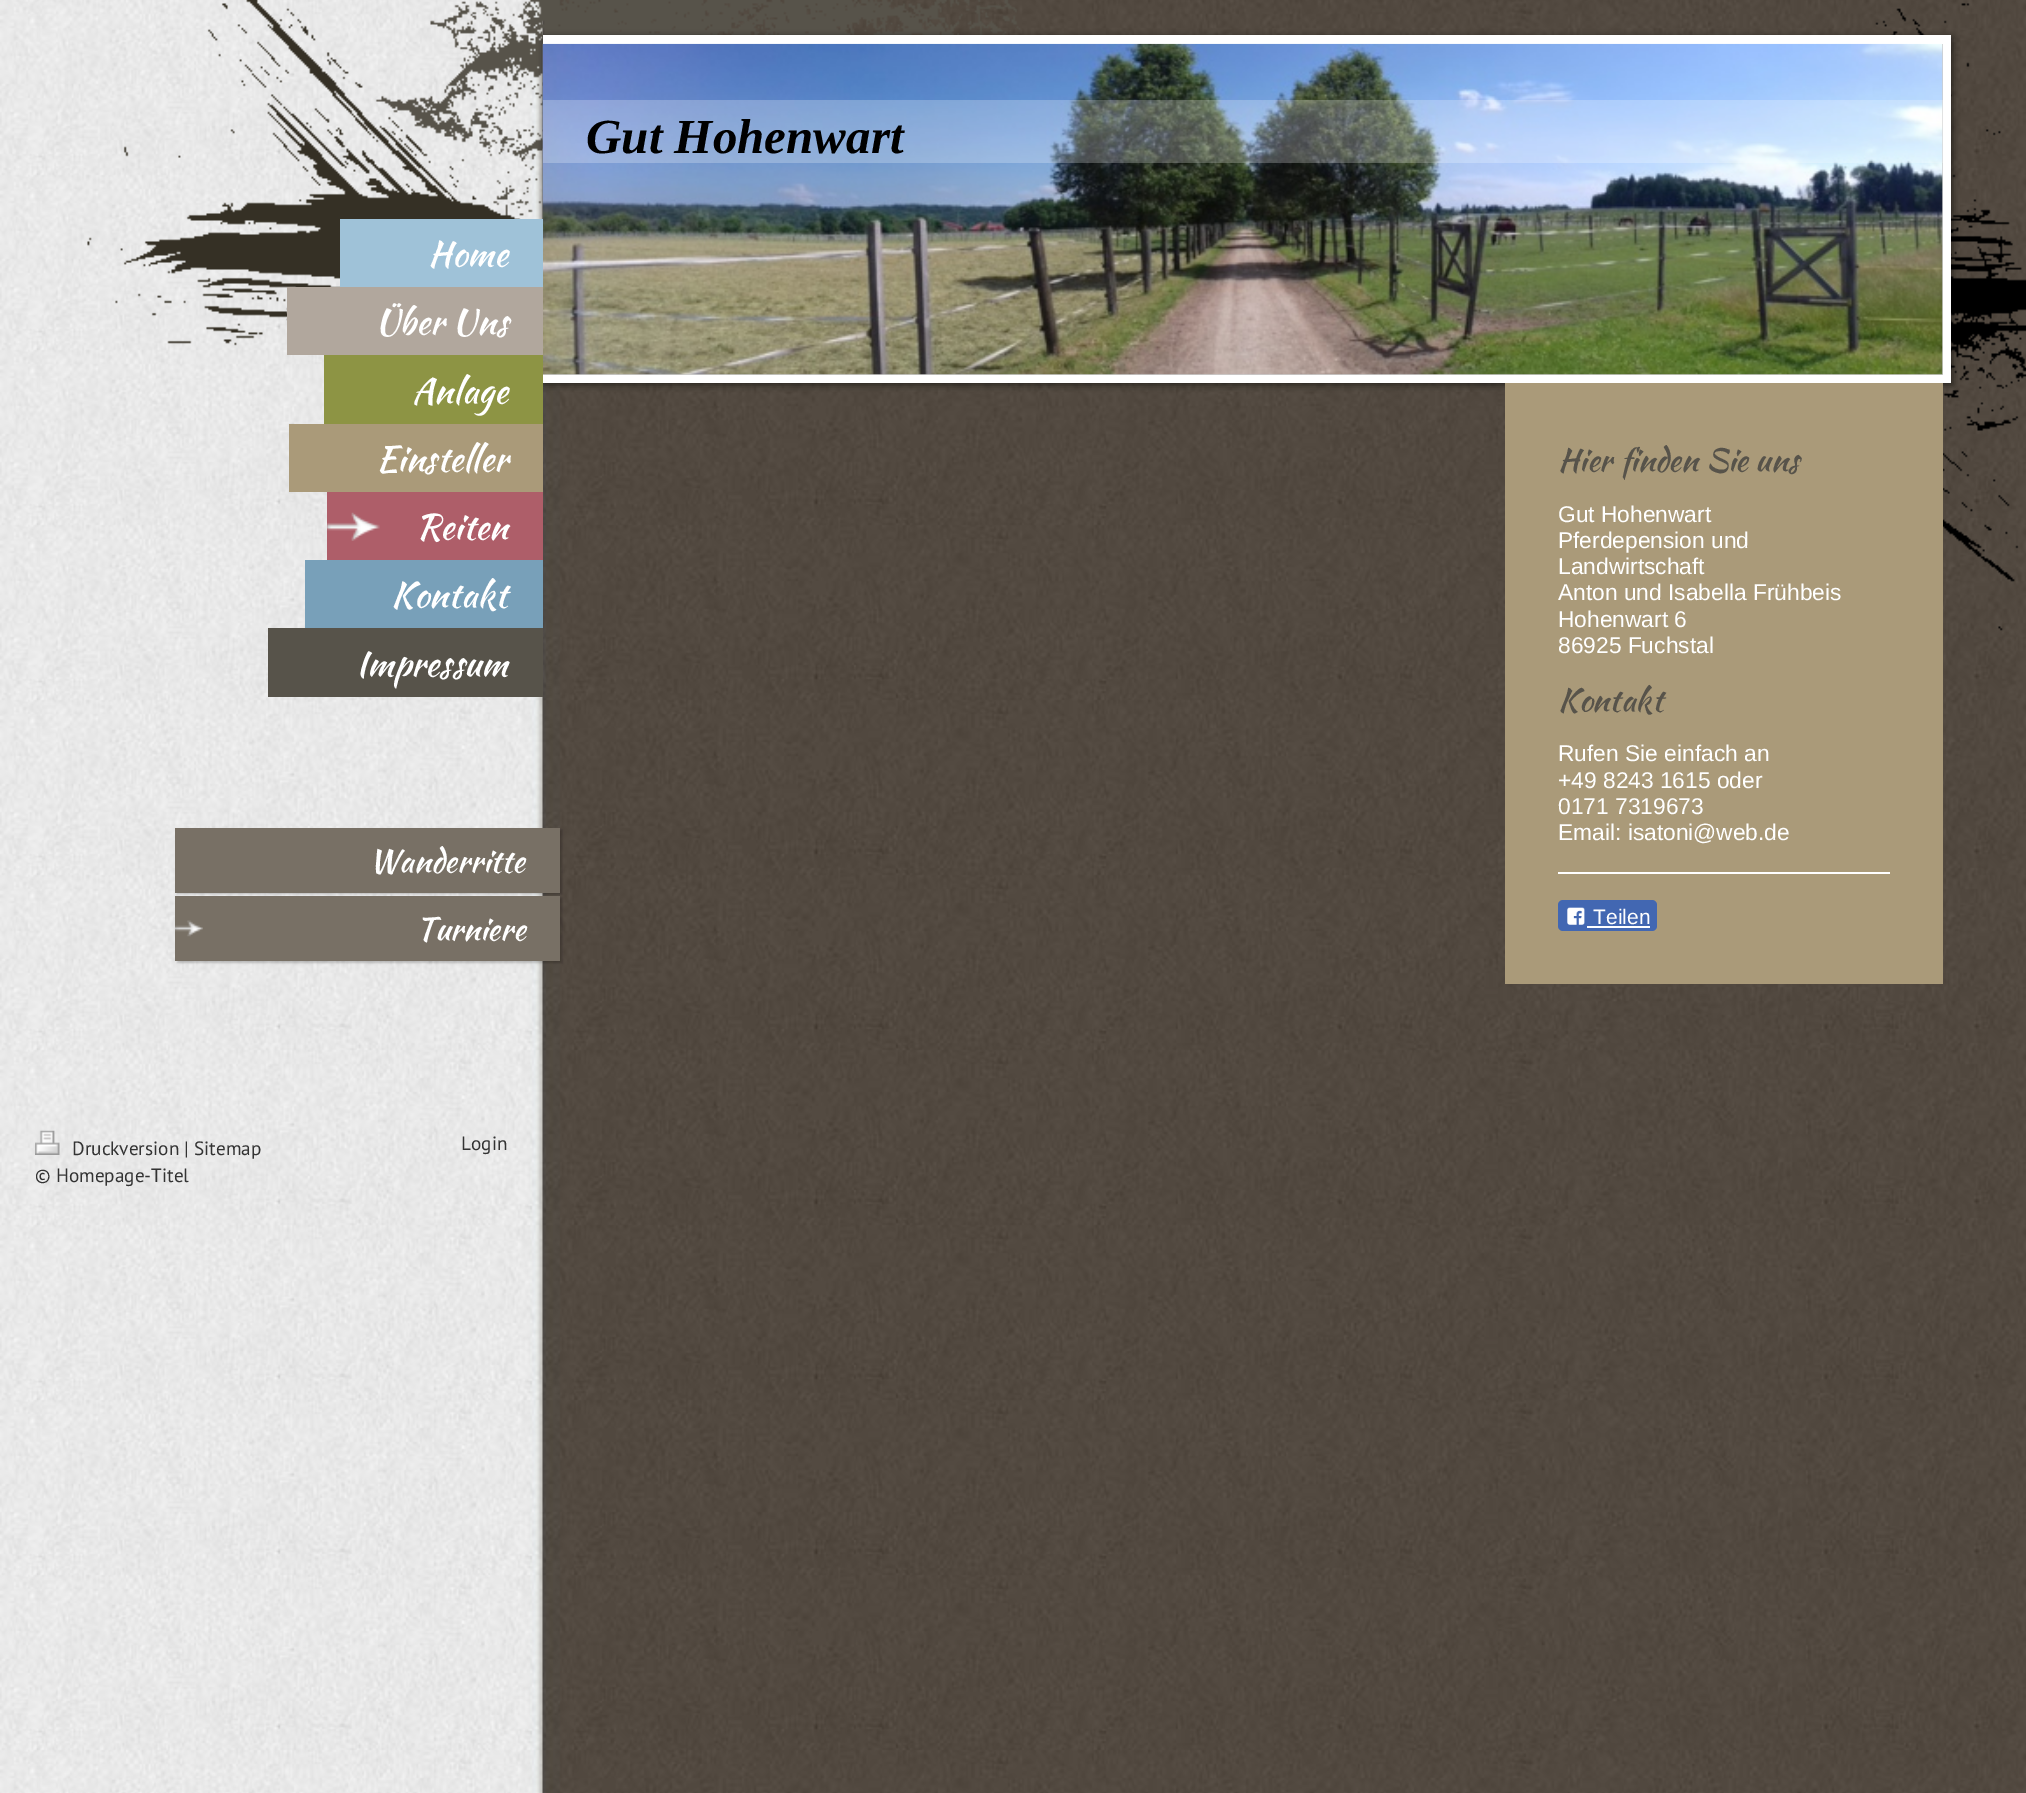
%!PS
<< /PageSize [2026 1793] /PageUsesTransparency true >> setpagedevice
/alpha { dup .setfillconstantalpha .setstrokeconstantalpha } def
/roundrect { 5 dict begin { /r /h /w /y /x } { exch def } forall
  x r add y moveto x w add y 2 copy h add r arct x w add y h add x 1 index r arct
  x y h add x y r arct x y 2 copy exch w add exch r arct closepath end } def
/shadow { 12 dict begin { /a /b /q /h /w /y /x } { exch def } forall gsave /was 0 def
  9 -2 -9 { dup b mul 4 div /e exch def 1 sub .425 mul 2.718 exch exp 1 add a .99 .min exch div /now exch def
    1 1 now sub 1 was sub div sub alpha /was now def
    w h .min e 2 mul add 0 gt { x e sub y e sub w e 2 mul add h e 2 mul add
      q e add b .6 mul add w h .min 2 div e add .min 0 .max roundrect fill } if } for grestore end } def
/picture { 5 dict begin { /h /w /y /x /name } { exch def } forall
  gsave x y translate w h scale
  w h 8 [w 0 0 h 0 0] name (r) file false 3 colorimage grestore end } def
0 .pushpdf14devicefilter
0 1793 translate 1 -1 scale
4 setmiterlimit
1 setgray
0 0 2026 1793 rectfill
(img1.rgb) 0 0 2026 1793 picture
(img2.rgb) 87 0 1939 631 picture
0 setgray
544 37 1409 348 0 3.5 0.5 shadow
1 setgray
543 35 1400 9 rectfill
0.8 setgray
543 44 1400 331 rectfill
(img5.rgb) 542 43 1401 332 picture
0.624 0.761 0.847 setrgbcolor
340 219 203 68 rectfill
/KaushanScript-Regular [35 0 0 -35 0 0] selectfont
1 setgray
428 266 moveto (Home) show
0.694 0.655 0.616 setrgbcolor
287 287 256 68 rectfill
1 setgray
375 334 moveto (Über Uns) show
0.553 0.58 0.267 setrgbcolor
324 355 219 69 rectfill
1 setgray
412 403 moveto (Anlage) show
0.667 0.604 0.475 setrgbcolor
289 424 254 68 rectfill
1 setgray
376 471 moveto (Einsteller) show
0.682 0.369 0.412 setrgbcolor
327 492 216 68 rectfill
(img3.rgb) 327 512 53 29 picture
1 setgray
416 539 moveto (Reiten) show
0.471 0.627 0.725 setrgbcolor
305 560 238 68 rectfill
1 setgray
391 607 moveto (Kontakt) show
0.341 0.325 0.29 setrgbcolor
268 628 275 69 rectfill
1 setgray
356 676 moveto (Impressum) show
0 setgray
177 830 385 64 0 1 0.2 shadow
0.471 0.439 0.396 setrgbcolor
175 828 385 65 rectfill
/KaushanScript-Regular [31.5 0 0 -31.5 0 0] selectfont
1 setgray
369 872 moveto (Wanderritte) show
0 setgray
177 898 385 65 0 1 0.2 shadow
0.471 0.439 0.396 setrgbcolor
175 896 385 65 rectfill
(img4.rgb) 175 920 28 17 picture
1 setgray
416 940 moveto (Turniere) show
1943 35 8 348 rectfill
543 375 1408 8 rectfill
0.24 alpha
543 100 1400 63 rectfill
/LiberationSerif-BoldItalic [49 0 0 -49 0 0] selectfont
1 alpha
0 setgray
586 153 moveto (Gut Hohenwart) show
0.667 0.604 0.475 setrgbcolor
1505 383 438 601 rectfill
/KaushanScript-Regular [31.5 0 0 -31.5 0 0] selectfont
0.341 0.325 0.29 setrgbcolor
1558 471 moveto (Hier finden Sie uns) show
/LiberationSans-Regular [22.75 0 0 -22.75 0 0] selectfont
1 setgray
1558 522 moveto (Gut Hohenwart) show
1558 548 moveto (Pferdepension und) show
1558 574 moveto (Landwirtschaft) show
1558 600 moveto (Anton und Isabella Frühbeis) show
1558 627 moveto (Hohenwart 6) show
1558 653 moveto (86925 Fuchstal) show
/KaushanScript-Regular [31.5 0 0 -31.5 0 0] selectfont
0.341 0.325 0.29 setrgbcolor
1558 711 moveto (Kontakt) show
/LiberationSans-Regular [22.75 0 0 -22.75 0 0] selectfont
1 setgray
1558 761 moveto (Rufen Sie einfach an) show
1558 788 moveto (+49 8243 1615 oder) show
1558 814 moveto (0171 7319673) show
1558 840 moveto (Email: isatoni@web.de) show
1558 872 332 2 rectfill
0.259 0.404 0.698 setrgbcolor
1558 900 99 31 5 roundrect fill
(img6.rgb) 1567 907 18 18 picture
/LiberationSans-Regular [21 0 0 -21 0 0] selectfont
1 setgray
1593 924 moveto (Teilen) show
1587 926 63 2 rectfill
(img7.rgb) 35 1130 25 25 picture
/PTSans-Regular [19.25 0 0 -19.25 0 0] selectfont
0.2 setgray
72 1155 moveto (Druckversion | Sitemap) show
35 1182 moveto (© Homepage-Titel) show
461 1150 moveto (Login) show
.poppdf14devicefilter showpage
